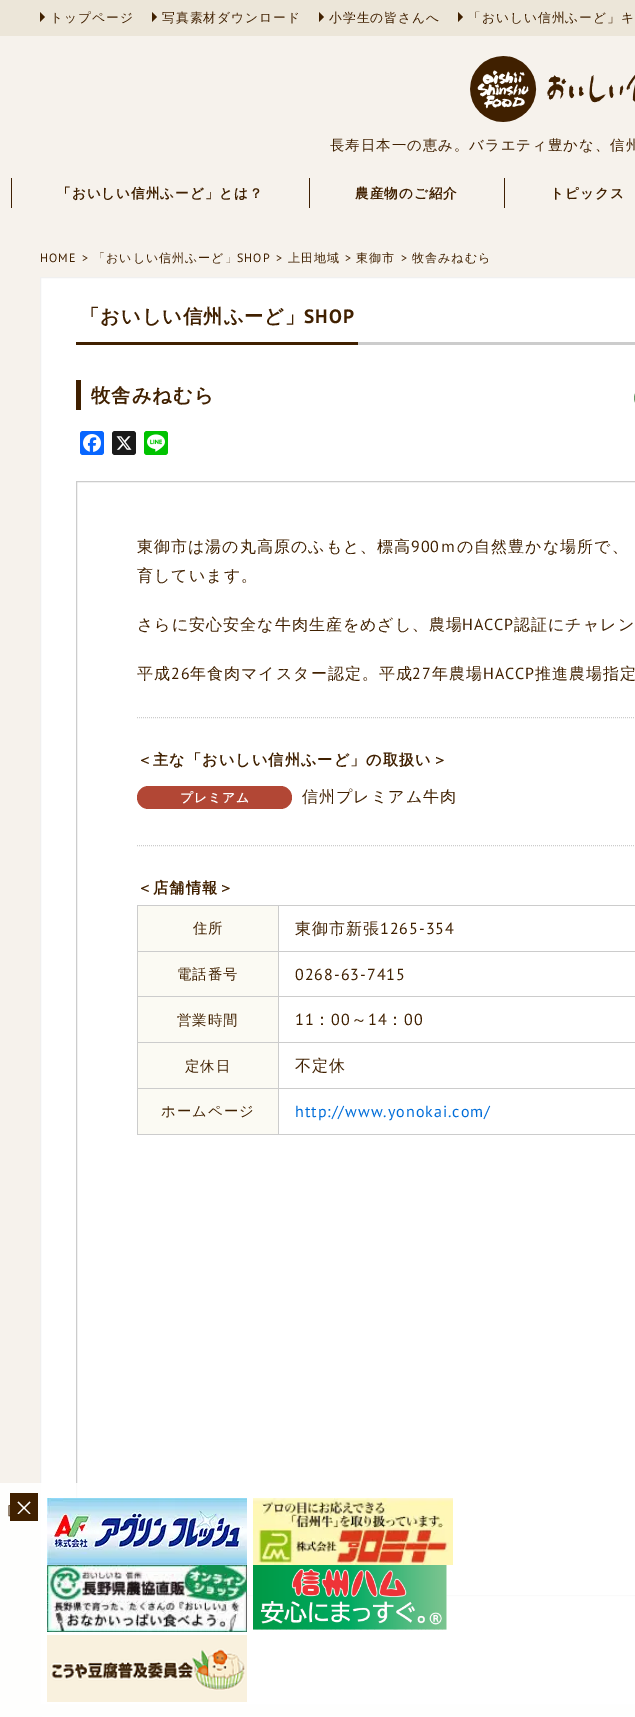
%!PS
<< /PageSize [635 1717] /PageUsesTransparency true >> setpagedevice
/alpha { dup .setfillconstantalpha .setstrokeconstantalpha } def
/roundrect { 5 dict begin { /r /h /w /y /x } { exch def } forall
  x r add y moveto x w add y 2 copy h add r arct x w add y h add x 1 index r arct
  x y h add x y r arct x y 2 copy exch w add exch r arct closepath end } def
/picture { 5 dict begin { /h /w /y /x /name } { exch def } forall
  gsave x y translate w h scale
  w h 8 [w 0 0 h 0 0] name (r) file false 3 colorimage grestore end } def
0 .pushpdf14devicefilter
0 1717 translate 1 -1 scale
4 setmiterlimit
0.965 0.949 0.925 setrgbcolor
0 0 635 1717 rectfill
0.925 0.902 0.851 setrgbcolor
0 0 635 36 rectfill
0.251 0.125 0 setrgbcolor
newpath 40 22 moveto 40 12 lineto 45 17 lineto closepath fill
/WenQuanYiZenHei-Medium [12.75 0 0 -12.75 0 0] selectfont
50 22 moveto 1 0 (トップページ) ashow
newpath 152 22 moveto 152 12 lineto 157 17 lineto closepath fill
162 22 moveto 1 0 (写真素材ダウンロード) ashow
newpath 319 22 moveto 319 12 lineto 324 17 lineto closepath fill
329 22 moveto 1 0 (小学生の皆さんへ) ashow
newpath 458 22 moveto 458 12 lineto 463 17 lineto closepath fill
468 22 moveto 1 0 (「おいしい信州ふーど」キ) ashow
(img1.rgb) 470 56 165 66 picture
/WenQuanYiZenHei-Medium [14.4 0 0 -14.4 0 0] selectfont
330 150 moveto 1 0 (長寿日本一の恵み。バラエティ豊かな、信州) ashow
0.247 0.125 0.012 setrgbcolor
11 178 1 30 rectfill
/WenQuanYiZenHei-Bold [13.6 0 0 -13.6 0 0] selectfont
0.251 0.125 0 setrgbcolor
57 198 moveto 1 0 (「おいしい信州ふーど」とは？) ashow
0.247 0.125 0.012 setrgbcolor
309 178 1 30 rectfill
0.251 0.125 0 setrgbcolor
355 198 moveto 1 0 (農産物のご紹介) ashow
0.247 0.125 0.012 setrgbcolor
504 178 1 30 rectfill
0.251 0.125 0 setrgbcolor
550 198 moveto 1 0 (トピックス) ashow
/PTSans-Regular [12 0 0 -12 0 0] selectfont
40 262 moveto 1 0 (HOME) ashow
82 262 moveto -1 0 (>) ashow
/WenQuanYiZenHei-Medium [12 0 0 -12 0 0] selectfont
93 262 moveto 1 0 (「おいしい信州ふーど」) ashow
/PTSans-Regular [12 0 0 -12 0 0] selectfont
237 262 moveto 1 0 (SHOP) ashow
276 262 moveto -1 0 (>) ashow
/WenQuanYiZenHei-Medium [12 0 0 -12 0 0] selectfont
288 262 moveto 1 0 (上田地域) ashow
/PTSans-Regular [12 0 0 -12 0 0] selectfont
345 262 moveto -1 0 (>) ashow
/WenQuanYiZenHei-Medium [12 0 0 -12 0 0] selectfont
356 262 moveto 1 0 (東御市) ashow
/PTSans-Regular [12 0 0 -12 0 0] selectfont
401 262 moveto -1 0 (>) ashow
/WenQuanYiZenHei-Medium [12 0 0 -12 0 0] selectfont
412 262 moveto 1 0 (牧舎みねむら) ashow
1 setgray
newpath 40.5 277.5 moveto 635.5 277.5 lineto 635.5 1704.5 lineto 40.5 1704.5 lineto closepath gsave fill grestore
0.941 setgray
stroke
0.8 setgray
358 342 277 3 rectfill
0.251 0.125 0 setrgbcolor
76 342 282 3 rectfill
/WenQuanYiZenHei-Bold [19.25 0 0 -19.25 0 0] selectfont
80 323 moveto 1 0 (「おいしい信州ふーど」) ashow
/PTSans-Bold [19.25 0 0 -19.25 0 0] selectfont
304 323 moveto 1 0 (SHOP) ashow
76 380 5 30 rectfill
/WenQuanYiZenHei-Bold [19.25 0 0 -19.25 0 0] selectfont
91 402 moveto 1 0 (牧舎みねむら) ashow
0.4 0.6 0.4 setrgbcolor
634 388 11 20 10 roundrect fill
0.031 0.4 1 setrgbcolor
80 431 24 24 3 roundrect fill
(img2.rgb) 83 434 18 18 picture
0.102 setgray
112 431 24 24 3 roundrect fill
(img3.rgb) 116 436 16 14 picture
0 0.765 0 setrgbcolor
144 431 24 24 3 roundrect fill
(img4.rgb) 147 434 18 18 picture
0.8 setgray
76.5 481.5 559 1114 rectstroke
/WenQuanYiZenHei-Medium [16 0 0 -16 0 0] selectfont
0.251 0.125 0 setrgbcolor
137 552 moveto 1 0 (東御市は湯の丸高原のふもと、標高) ashow
/PTSans-Regular [16 0 0 -16 0 0] selectfont
411 552 moveto 1 0 (900) ashow
/WenQuanYiZenHei-Medium [16 0 0 -16 0 0] selectfont
440 552 moveto 1 0 (ｍの自然豊かな場所で、) ashow
137 581 moveto 1 0 (育しています。) ashow
137 630 moveto 1 0 (さらに安心安全な牛肉生産をめざし、農場) ashow
/PTSans-Regular [16 0 0 -16 0 0] selectfont
462 630 moveto 1 0 (HACCP) ashow
/WenQuanYiZenHei-Medium [16 0 0 -16 0 0] selectfont
514 630 moveto 1 0 (認証にチャレン) ashow
137 679 moveto 1 0 (平成) ashow
/PTSans-Regular [16 0 0 -16 0 0] selectfont
171 679 moveto 1 0 (26) ashow
/WenQuanYiZenHei-Medium [16 0 0 -16 0 0] selectfont
190 679 moveto 1 0 (年食肉マイスター認定。平成) ashow
/PTSans-Regular [16 0 0 -16 0 0] selectfont
412 679 moveto 1 0 (27) ashow
/WenQuanYiZenHei-Medium [16 0 0 -16 0 0] selectfont
432 679 moveto 1 0 (年農場) ashow
/PTSans-Regular [16 0 0 -16 0 0] selectfont
483 679 moveto 1 0 (HACCP) ashow
/WenQuanYiZenHei-Medium [16 0 0 -16 0 0] selectfont
535 679 moveto 1 0 (推進農場指定) ashow
0.8 setgray
[1 1] 0 setdash
newpath 137 717.5 moveto 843 717.5 lineto stroke
/WenQuanYiZenHei-Bold [15.2 0 0 -15.2 0 0] selectfont
0.251 0.125 0 setrgbcolor
137 765 moveto 1 0 (＜主な「おいしい信州ふーど」の取扱い＞) ashow
0.698 0.278 0.208 setrgbcolor
137 786 155 23 11.5 roundrect fill
/WenQuanYiZenHei-Bold [12.75 0 0 -12.75 0 0] selectfont
1 setgray
180 802 moveto 1 0 (プレミアム) ashow
/WenQuanYiZenHei-Medium [16 0 0 -16 0 0] selectfont
0.251 0.125 0 setrgbcolor
302 802 moveto 1 0 (信州プレミアム牛肉) ashow
0.8 setgray
newpath 137 845.5 moveto 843 845.5 lineto stroke
/WenQuanYiZenHei-Bold [15.2 0 0 -15.2 0 0] selectfont
0.251 0.125 0 setrgbcolor
137 893 moveto 1 0 (＜店舗情報＞) ashow
0.984 0.98 0.953 setrgbcolor
138 906 140 45 rectfill
0.8 setgray
278 905 357 1 rectfill
278 951 357 1 rectfill
278 996 357 1 rectfill
278 1042 357 1 rectfill
278 1088 357 1 rectfill
278 1134 357 1 rectfill
278 1088 1 47 rectfill
137 1088 142 1 rectfill
278 1042 1 47 rectfill
137 1042 142 1 rectfill
278 996 1 47 rectfill
137 996 142 1 rectfill
278 951 1 46 rectfill
137 951 142 1 rectfill
278 905 1 47 rectfill
137 905 142 1 rectfill
137 1134 142 1 rectfill
137 1088 1 47 rectfill
137 1042 1 47 rectfill
137 996 1 47 rectfill
137 951 1 46 rectfill
137 905 1 47 rectfill
/WenQuanYiZenHei-Medium [14.4 0 0 -14.4 0 0] selectfont
0.251 0.125 0 setrgbcolor
193 933 moveto 1 0 (住所) ashow
/WenQuanYiZenHei-Medium [16 0 0 -16 0 0] selectfont
295 934 moveto 1 0 (東御市新張) ashow
/PTSans-Regular [16 0 0 -16 0 0] selectfont
380 934 moveto 1 0 (1265-354) ashow
0.984 0.98 0.953 setrgbcolor
138 952 140 44 rectfill
/WenQuanYiZenHei-Medium [14.4 0 0 -14.4 0 0] selectfont
0.251 0.125 0 setrgbcolor
177 979 moveto 1 0 (電話番号) ashow
/PTSans-Regular [16 0 0 -16 0 0] selectfont
295 980 moveto 1 0 (0268-63-7415) ashow
0.984 0.98 0.953 setrgbcolor
138 997 140 45 rectfill
/WenQuanYiZenHei-Medium [14.4 0 0 -14.4 0 0] selectfont
0.251 0.125 0 setrgbcolor
177 1025 moveto 1 0 (営業時間) ashow
/PTSans-Regular [16 0 0 -16 0 0] selectfont
295 1025 moveto 1 0 (11) ashow
/WenQuanYiZenHei-Medium [16 0 0 -16 0 0] selectfont
314 1025 moveto 1 0 (：) ashow
/PTSans-Regular [16 0 0 -16 0 0] selectfont
331 1025 moveto 1 0 (00) ashow
/WenQuanYiZenHei-Medium [16 0 0 -16 0 0] selectfont
351 1025 moveto 1 0 (～) ashow
/PTSans-Regular [16 0 0 -16 0 0] selectfont
368 1025 moveto 1 0 (14) ashow
/WenQuanYiZenHei-Medium [16 0 0 -16 0 0] selectfont
387 1025 moveto 1 0 (：) ashow
/PTSans-Regular [16 0 0 -16 0 0] selectfont
404 1025 moveto 1 0 (00) ashow
0.984 0.98 0.953 setrgbcolor
138 1043 140 45 rectfill
/WenQuanYiZenHei-Medium [14.4 0 0 -14.4 0 0] selectfont
0.251 0.125 0 setrgbcolor
185 1071 moveto 1 0 (定休日) ashow
/WenQuanYiZenHei-Medium [16 0 0 -16 0 0] selectfont
295 1071 moveto 1 0 (不定休) ashow
0.984 0.98 0.953 setrgbcolor
138 1089 140 45 rectfill
/WenQuanYiZenHei-Medium [14.4 0 0 -14.4 0 0] selectfont
0.251 0.125 0 setrgbcolor
161 1116 moveto 1 0 (ホームページ) ashow
/PTSans-Regular [16 0 0 -16 0 0] selectfont
0 0.427 0.851 setrgbcolor
295 1117 moveto 1 0 (http://www.yonokai.com/) ashow
1 setgray
newpath 40.5 1715.5 moveto 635.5 1715.5 lineto 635.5 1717.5 lineto 40.5 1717.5 lineto closepath gsave fill grestore
0.941 setgray
[] 0 setdash
stroke
0.9 alpha
1 setgray
0 1483 635 234 rectfill
/WenQuanYiZenHei-Medium [12.75 0 0 -12.75 0 0] selectfont
1 alpha
0.251 0.125 0 setrgbcolor
0 1514 moveto 1 0 (［) ashow
10 1493 28 28 rectfill
1 setgray
newpath 18.5 1501.5 moveto 30.5 1513.5 lineto 29.5 1514 lineto 17.5 1502.5 lineto closepath fill
newpath 17.5 1513.5 moveto 29.5 1501.5 lineto 30.5 1502.5 lineto 18.5 1514 lineto closepath fill
(img5.rgb) 47 1498 200 67 picture
(img6.rgb) 253 1498 200 67 picture
(img7.rgb) 47 1565 200 67 picture
(img8.rgb) 253 1565 194 65 picture
(img9.rgb) 47 1635 200 67 picture
.poppdf14devicefilter showpage
